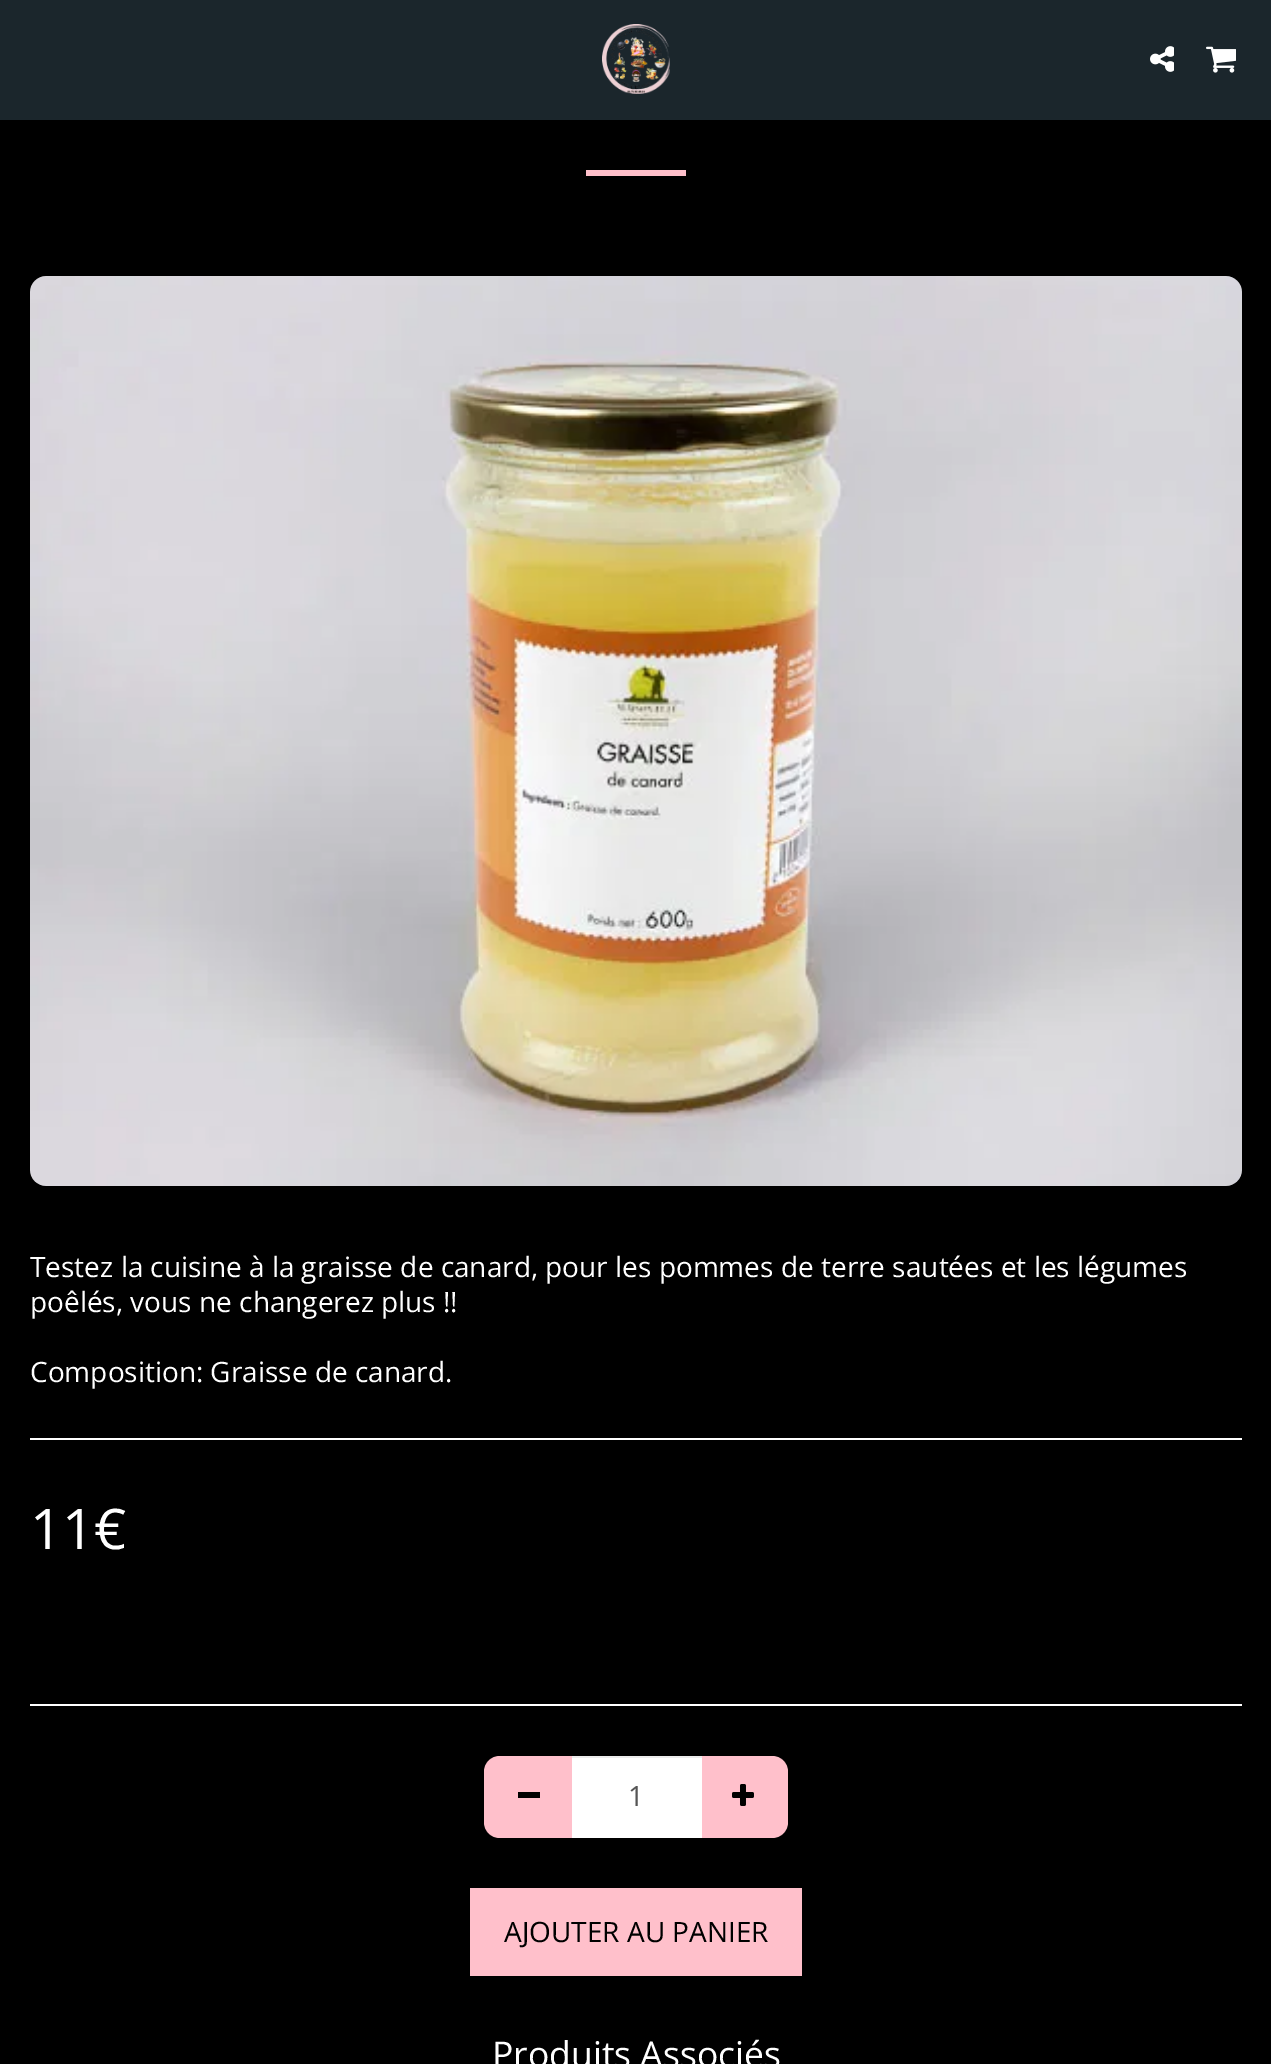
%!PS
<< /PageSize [1271 2064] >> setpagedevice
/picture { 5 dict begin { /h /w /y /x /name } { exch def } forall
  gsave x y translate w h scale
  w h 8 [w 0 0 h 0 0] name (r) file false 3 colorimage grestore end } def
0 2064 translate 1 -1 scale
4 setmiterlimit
0 setgray
0 0 1271 2064 rectfill
0.106 0.149 0.173 setrgbcolor
0 0 1271 120 rectfill
(img1.rgb) 602 24 68 70 picture
(img2.rgb) 1150 46 24 26 picture
(img3.rgb) 1206 46 30 27 picture
1 0.753 0.796 setrgbcolor
586 170 100 6 rectfill
(img4.rgb) 30 276 1212 910 picture
/OpenSans-Regular [28 0 0 -28 0 0] selectfont
1 setgray
30 1277 moveto (Testez la cuisine à la graisse de canard, pour les pommes de terre sautées et les légumes) show
30 1312 moveto (poêlés, vous ne changerez plus !!) show
30 1382 moveto (Composition: Graisse de canard.) show
30 1438 1212 2 rectfill
/OpenSans-Regular [56 0 0 -56 0 0] selectfont
30 1549 moveto (11€) show
30 1704 1212 2 rectfill
1 0.753 0.796 setrgbcolor
newpath 500 1756 moveto 574 1756 lineto 574 1838 lineto 500 1838 lineto 491 1838 484 1831 484 1822 curveto 484 1772 lineto 484 1763 491 1756 500 1756 curveto closepath fill
0 setgray
518 1792 22 6 rectfill
1 0.753 0.796 setrgbcolor
newpath 700 1756 moveto 772 1756 lineto 781 1756 788 1763 788 1772 curveto 788 1822 lineto 788 1831 781 1838 772 1838 curveto 700 1838 lineto closepath fill
1 setgray
572 1758 130 80 rectfill
0.925 setgray
572 1756 130 2 rectfill
/OpenSans-Regular [28 0 0 -28 0 0] selectfont
0.333 setgray
628 1806 moveto (1) show
(img5.rgb) 732 1784 22 22 picture
1 0.753 0.796 setrgbcolor
470 1888 332 88 rectfill
0 setgray
504 1942 moveto (AJOUTER AU PANIER) show
/OpenSans-Regular [35.5 0 0 -35.5 0 0] selectfont
1 setgray
492 2067 moveto (Produits Associés) show
showpage
